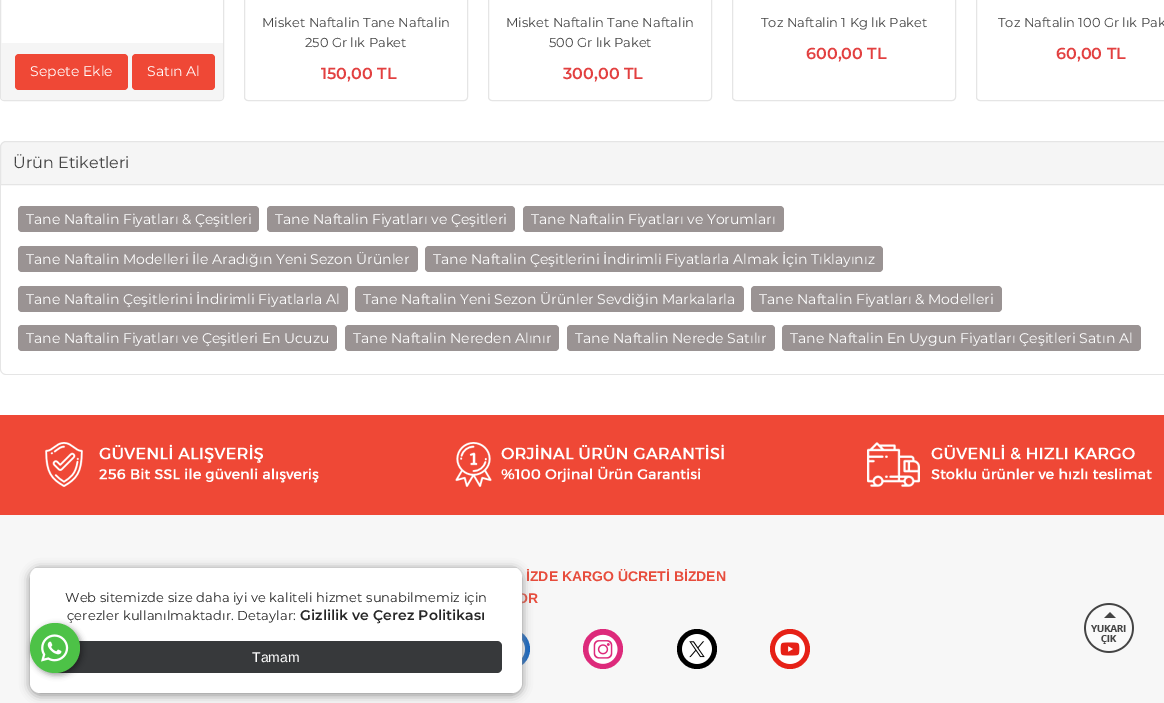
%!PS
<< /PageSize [1164 703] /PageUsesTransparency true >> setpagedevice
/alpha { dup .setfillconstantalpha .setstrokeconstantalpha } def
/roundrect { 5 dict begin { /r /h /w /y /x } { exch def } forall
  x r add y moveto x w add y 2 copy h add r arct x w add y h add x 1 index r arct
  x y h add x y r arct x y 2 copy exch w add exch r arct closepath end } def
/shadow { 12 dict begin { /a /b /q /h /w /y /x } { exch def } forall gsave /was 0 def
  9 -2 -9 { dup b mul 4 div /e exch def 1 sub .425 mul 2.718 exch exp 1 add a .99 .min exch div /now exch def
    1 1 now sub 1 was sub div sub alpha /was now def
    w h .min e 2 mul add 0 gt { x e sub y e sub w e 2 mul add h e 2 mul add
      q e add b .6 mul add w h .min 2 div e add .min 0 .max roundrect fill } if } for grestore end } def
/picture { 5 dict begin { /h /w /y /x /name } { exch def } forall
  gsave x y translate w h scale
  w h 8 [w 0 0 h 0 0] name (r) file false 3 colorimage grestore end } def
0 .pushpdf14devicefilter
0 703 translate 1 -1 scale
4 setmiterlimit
1 setgray
0 0 1164 703 rectfill
0.898 setgray
244.5 -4.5 223 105 3.5 roundrect stroke
/Montserrat-Regular [13 0 0 -13 0 0] selectfont
0.267 setgray
262 27 moveto (Misket Naftalin Tane Naftalin) show
305 47 moveto (250 Gr lık Paket) show
/Montserrat-SemiBold [16 0 0 -16 0 0] selectfont
0.886 0.251 0.251 setrgbcolor
321 79 moveto (150,00 TL) show
0.898 setgray
488.5 -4.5 223 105 3.5 roundrect stroke
/Montserrat-Regular [13 0 0 -13 0 0] selectfont
0.267 setgray
506 27 moveto (Misket Naftalin Tane Naftalin) show
549 47 moveto (500 Gr lık Paket) show
/Montserrat-SemiBold [16 0 0 -16 0 0] selectfont
0.886 0.251 0.251 setrgbcolor
563 79 moveto (300,00 TL) show
0.898 setgray
732.5 -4.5 223 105 3.5 roundrect stroke
/Montserrat-Regular [13 0 0 -13 0 0] selectfont
0.267 setgray
761 27 moveto (Toz Naftalin 1 Kg lık Paket) show
/Montserrat-SemiBold [16 0 0 -16 0 0] selectfont
0.886 0.251 0.251 setrgbcolor
806 59 moveto (600,00 TL) show
0.898 setgray
976.5 -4.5 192 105 3.5 roundrect stroke
/Montserrat-Regular [13 0 0 -13 0 0] selectfont
0.267 setgray
998 27 moveto (Toz Naftalin 100 Gr lık Pak) show
/Montserrat-SemiBold [16 0 0 -16 0 0] selectfont
0.886 0.251 0.251 setrgbcolor
1056 59 moveto (60,00 TL) show
0.898 setgray
0.5 -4.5 223 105 3.5 roundrect stroke
0.961 setgray
newpath 1 43 moveto 223 43 lineto 223 97 lineto 223 98.5 221.5 100 220 100 curveto 4 100 lineto 2.5 100 1 98.5 1 97 curveto closepath fill
0.937 0.282 0.212 setrgbcolor
15 54 113 36 4 roundrect fill
/Montserrat-Regular [14 0 0 -14 0 0] selectfont
1 setgray
30 76 moveto (Sepete Ekle) show
0.937 0.282 0.212 setrgbcolor
132 54 83 36 4 roundrect fill
1 setgray
147 76 moveto (Satın Al) show
0.961 setgray
newpath 6 141.5 moveto 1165 141.5 lineto 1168 141.5 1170.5 144 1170.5 147 curveto 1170.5 184.5 lineto 0.5 184.5 lineto 0.5 147 lineto 0.5 144 3 141.5 6 141.5 curveto closepath gsave fill grestore
0.898 setgray
stroke
/Montserrat-Regular [16 0 0 -16 0 0] selectfont
0.267 setgray
13 168 moveto (Ürün Etiketleri) show
0.898 setgray
newpath 0 185 moveto 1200 185 lineto 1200 369 lineto 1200 372 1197 375 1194 375 curveto 6 375 lineto 3 375 0 372 0 369 curveto closepath 1 185 moveto 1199 185 lineto 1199 369 lineto 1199 372 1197 374 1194 374 curveto 6 374 lineto 3 374 1 372 1 369 curveto closepath eofill
0.604 0.576 0.576 setrgbcolor
18 206 241 26 4 roundrect fill
/Montserrat-Regular [14 0 0 -14 0 0] selectfont
1 setgray
26 224 moveto (Tane Naftalin Fiyatları & Çeşitleri) show
0.604 0.576 0.576 setrgbcolor
267 206 248 26 4 roundrect fill
1 setgray
275 224 moveto (Tane Naftalin Fiyatları ve Çeşitleri) show
0.604 0.576 0.576 setrgbcolor
523 206 261 26 4 roundrect fill
1 setgray
531 224 moveto (Tane Naftalin Fiyatları ve Yorumları) show
0.604 0.576 0.576 setrgbcolor
18 246 400 26 4 roundrect fill
1 setgray
26 264 moveto (Tane Naftalin Modelleri İle Aradığın Yeni Sezon Ürünler) show
0.604 0.576 0.576 setrgbcolor
425 246 458 26 4 roundrect fill
1 setgray
433 264 moveto (Tane Naftalin Çeşitlerini İndirimli Fiyatlarla Almak İçin Tıklayınız) show
0.604 0.576 0.576 setrgbcolor
18 286 330 26 4 roundrect fill
1 setgray
26 304 moveto (Tane Naftalin Çeşitlerini İndirimli Fiyatlarla Al) show
0.604 0.576 0.576 setrgbcolor
355 286 389 26 4 roundrect fill
1 setgray
363 304 moveto (Tane Naftalin Yeni Sezon Ürünler Sevdiğin Markalarla) show
0.604 0.576 0.576 setrgbcolor
751 286 251 26 4 roundrect fill
1 setgray
759 304 moveto (Tane Naftalin Fiyatları & Modelleri) show
0.604 0.576 0.576 setrgbcolor
18 325 319 26 4 roundrect fill
1 setgray
26 343 moveto (Tane Naftalin Fiyatları ve Çeşitleri En Ucuzu) show
0.604 0.576 0.576 setrgbcolor
345 325 214 26 4 roundrect fill
1 setgray
353 343 moveto (Tane Naftalin Nereden Alınır) show
0.604 0.576 0.576 setrgbcolor
567 325 208 26 4 roundrect fill
1 setgray
575 343 moveto (Tane Naftalin Nerede Satılır) show
0.604 0.576 0.576 setrgbcolor
782 325 359 26 4 roundrect fill
1 setgray
790 343 moveto (Tane Naftalin En Uygun Fiyatları Çeşitleri Satın Al) show
0.937 0.282 0.212 setrgbcolor
0 415 1164 100 rectfill
(img1.rgb) 45 442 1107 45 picture
0.969 setgray
0 515 1164 188 rectfill
/LiberationSans-Bold [14 0 0 -14 0 0] selectfont
0.906 0.298 0.235 setrgbcolor
526 581 moveto (İZDE KARGO ÜCRETİ BİZDEN) show
517 603 moveto (OR) show
0.082 0.396 0.753 setrgbcolor
newpath 510 649 20 0 360 arc closepath fill
(img2.rgb) 522 640 3 18 picture
0.867 0.165 0.482 setrgbcolor
newpath 603 649 20 0 360 arc closepath fill
(img3.rgb) 588 634 30 30 picture
0 setgray
newpath 697 649 20 0 360 arc closepath fill
(img4.rgb) 682 634 30 30 picture
0.902 0.129 0.09 setrgbcolor
newpath 790 649 20 0 360 arc closepath fill
(img5.rgb) 775 634 30 30 picture
0.533 setgray
30 569 492 126 10 5 1 shadow
1 setgray
30 567 492 126 10 roundrect fill
0.8 setgray
35 567 482 1 rectfill
/Montserrat-Regular [13 0 0 -13 0 0] selectfont
0.149 setgray
65 602 moveto 0.1 0 (Web sitemizde size daha iyi ve kaliteli hizmet sunabilmemiz için) ashow
67 620 moveto 0.1 0 (çerezler kullanılmaktadır. Detaylar:) ashow
/Montserrat-SemiBold [14 0 0 -14 0 0] selectfont
300 620 moveto 0.1 0 (Gizlilik ve Çerez Politikası) ashow
0.216 0.224 0.231 setrgbcolor
50 641 452 32 5 roundrect fill
/LiberationSans-Regular [14 0 0 -14 0 0] selectfont
1 setgray
252 662 moveto (Tamam) show
(img6.rgb) 1084 603 50 50 picture
0 setgray
32 625 50 50 25 3 0.4 shadow
0.302 0.761 0.278 setrgbcolor
newpath 55 648 25 0 360 arc closepath fill
(img7.rgb) 41 634 28 28 picture
.poppdf14devicefilter showpage
